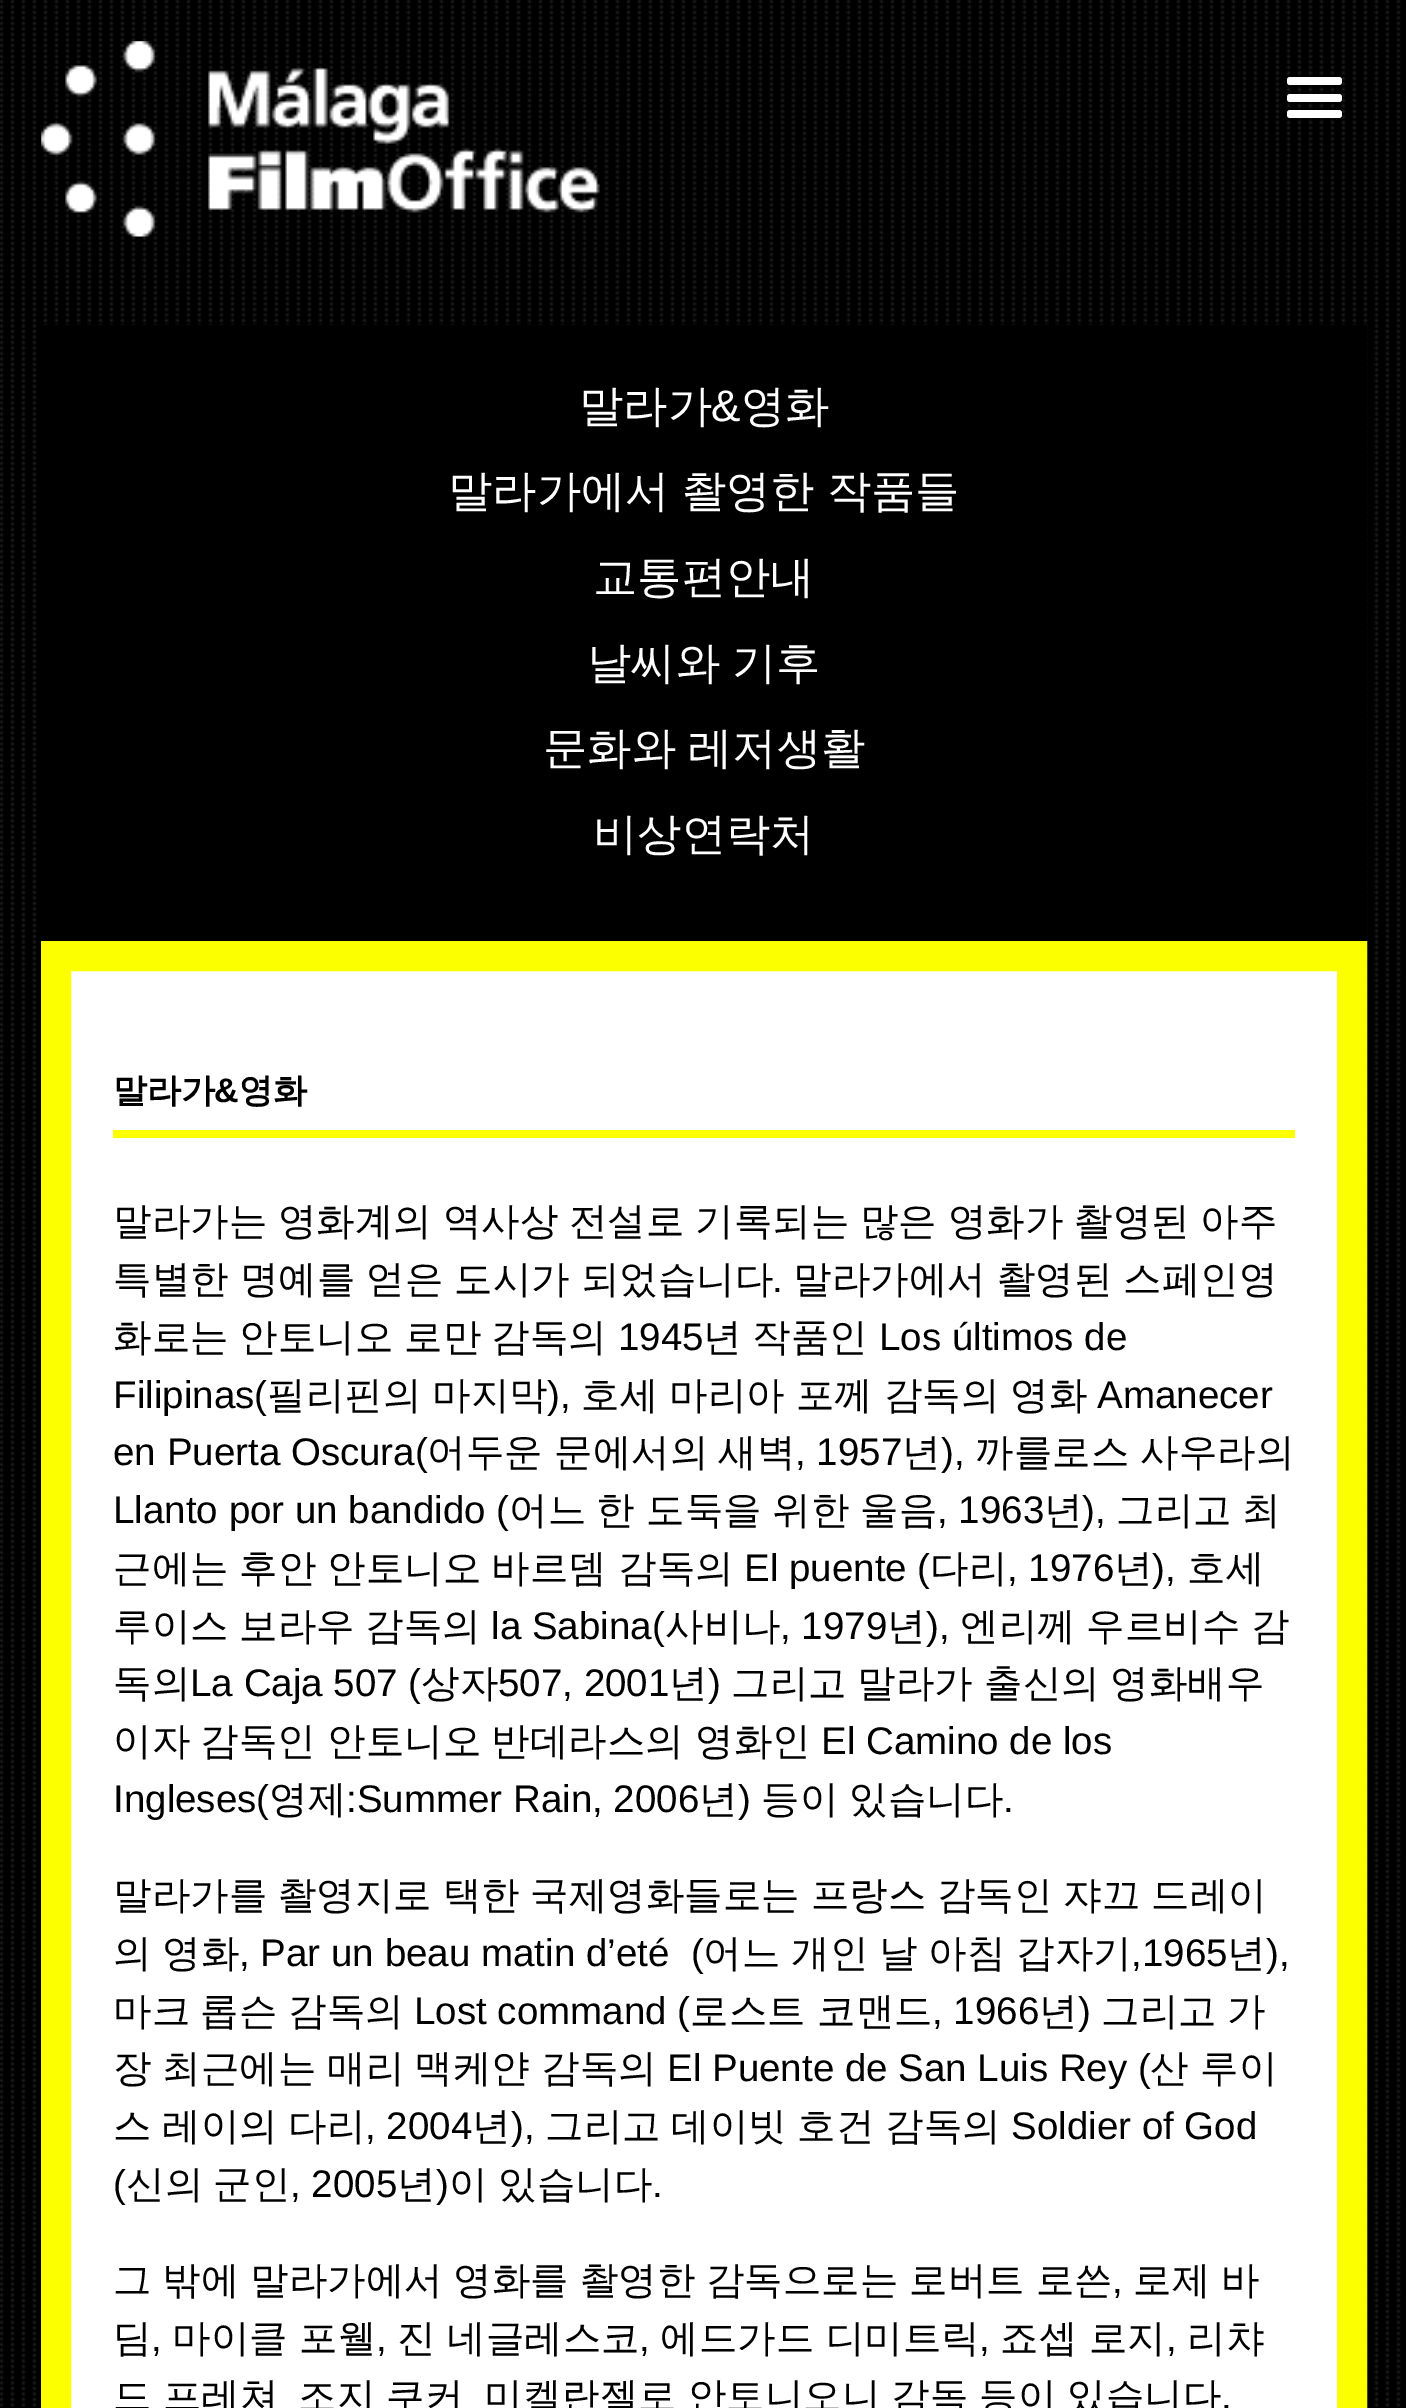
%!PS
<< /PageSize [1406 2408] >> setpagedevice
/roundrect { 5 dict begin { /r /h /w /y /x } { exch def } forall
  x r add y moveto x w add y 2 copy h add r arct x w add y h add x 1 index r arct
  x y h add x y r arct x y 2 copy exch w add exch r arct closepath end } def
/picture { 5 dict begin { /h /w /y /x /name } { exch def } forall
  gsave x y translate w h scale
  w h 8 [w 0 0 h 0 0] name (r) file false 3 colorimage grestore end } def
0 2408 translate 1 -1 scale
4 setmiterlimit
1 setgray
0 0 1406 2408 rectfill
(img1.rgb) 0 0 1406 2408 picture
(img2.rgb) 41 41 559 196 picture
1287 94 55 8 3 roundrect fill
1287 77 55 8 3 roundrect fill
1287 110 55 8 3 roundrect fill
0 setgray
43 325 1324 616 rectfill
/WenQuanYiZenHei-Medium [44.25 0 0 -44.25 0 0] selectfont
1 setgray
579 421 moveto (말라가) show
/LiberationSans-Regular [44.25 0 0 -44.25 0 0] selectfont
711 421 moveto (&) show
/WenQuanYiZenHei-Medium [44.25 0 0 -44.25 0 0] selectfont
741 421 moveto (영화) show
448 506 moveto -1 0 32 (말라가에서 촬영한 작품들) widthshow
593 592 moveto (교통편안내) show
587 678 moveto -1 0 32 (날씨와 기후) widthshow
543 763 moveto -1 0 32 (문화와 레저생활) widthshow
593 849 moveto (비상연락처) show
newpath 56 956 moveto 1352 956 lineto 1352 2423 lineto 56 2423 lineto closepath gsave fill grestore
0.988 1 0 setrgbcolor
30 setlinewidth
stroke
113 1130 1182 8 rectfill
/WenQuanYiZenHei-Bold [34 0 0 -34 0 0] selectfont
0 setgray
113 1102 moveto (말라가) show
/LiberationSans-Bold [34 0 0 -34 0 0] selectfont
214 1102 moveto (&) show
/WenQuanYiZenHei-Bold [34 0 0 -34 0 0] selectfont
239 1102 moveto (영화) show
/WenQuanYiZenHei-Medium [38.5 0 0 -38.5 0 0] selectfont
113 1234 moveto -0.75 0 32 (말라가는 영화계의 역사상 전설로 기록되는 많은 영화가 촬영된 아주) widthshow
113 1292 moveto -0.5 0 32 (특별한 명예를 얻은 도시가 되었습니다) widthshow
/LiberationSans-Regular [38.5 0 0 -38.5 0 0] selectfont
772 1292 moveto (.) show
/WenQuanYiZenHei-Medium [38.5 0 0 -38.5 0 0] selectfont
793 1292 moveto -0.5 0 32 (말라가에서 촬영된 스페인영) widthshow
113 1350 moveto (화로는) show
239 1350 moveto (안토니오) show
404 1350 moveto (로만) show
491 1350 moveto (감독의) show
/LiberationSans-Regular [38.5 0 0 -38.5 0 0] selectfont
618 1350 moveto (1945) show
/WenQuanYiZenHei-Medium [38.5 0 0 -38.5 0 0] selectfont
703 1350 moveto (년) show
752 1350 moveto (작품인) show
/LiberationSans-Regular [38.5 0 0 -38.5 0 0] selectfont
879 1350 moveto (Los últimos de) show
113 1408 moveto (Filipinas\() show
/WenQuanYiZenHei-Medium [38.5 0 0 -38.5 0 0] selectfont
267 1408 moveto -0.5 0 32 (필리핀의 마지막) widthshow
/LiberationSans-Regular [38.5 0 0 -38.5 0 0] selectfont
547 1408 moveto (\),) show
/WenQuanYiZenHei-Medium [38.5 0 0 -38.5 0 0] selectfont
581 1408 moveto -0.5 0 32 (호세 마리아 포께 감독의 영화) widthshow
/LiberationSans-Regular [38.5 0 0 -38.5 0 0] selectfont
1097 1408 moveto (Amanecer) show
113 1465 moveto (en Puerta Oscura\() show
/WenQuanYiZenHei-Medium [38.5 0 0 -38.5 0 0] selectfont
427 1465 moveto (어두운) show
554 1465 moveto (문에서의) show
718 1465 moveto (새벽) show
/LiberationSans-Regular [38.5 0 0 -38.5 0 0] selectfont
795 1465 moveto (, 1957) show
/WenQuanYiZenHei-Medium [38.5 0 0 -38.5 0 0] selectfont
902 1465 moveto (년) show
/LiberationSans-Regular [38.5 0 0 -38.5 0 0] selectfont
941 1465 moveto (\),) show
/WenQuanYiZenHei-Medium [38.5 0 0 -38.5 0 0] selectfont
975 1465 moveto (까를로스) show
1140 1465 moveto (사우라의) show
/LiberationSans-Regular [38.5 0 0 -38.5 0 0] selectfont
113 1523 moveto (Llanto por un bandido \() show
/WenQuanYiZenHei-Medium [38.5 0 0 -38.5 0 0] selectfont
509 1523 moveto (어느) show
596 1523 moveto (한) show
646 1523 moveto (도둑을) show
772 1523 moveto (위한) show
860 1523 moveto (울음) show
/LiberationSans-Regular [38.5 0 0 -38.5 0 0] selectfont
937 1523 moveto (, 1963) show
/WenQuanYiZenHei-Medium [38.5 0 0 -38.5 0 0] selectfont
1044 1523 moveto (년) show
/LiberationSans-Regular [38.5 0 0 -38.5 0 0] selectfont
1082 1523 moveto (\),) show
/WenQuanYiZenHei-Medium [38.5 0 0 -38.5 0 0] selectfont
1116 1523 moveto (그리고) show
1242 1523 moveto (최) show
113 1581 moveto (근에는) show
239 1581 moveto (후안) show
327 1581 moveto (안토니오) show
491 1581 moveto (바르뎀) show
618 1581 moveto (감독의) show
/LiberationSans-Regular [38.5 0 0 -38.5 0 0] selectfont
744 1581 moveto (El puente \() show
/WenQuanYiZenHei-Medium [38.5 0 0 -38.5 0 0] selectfont
930 1581 moveto (다리) show
/LiberationSans-Regular [38.5 0 0 -38.5 0 0] selectfont
1007 1581 moveto (, 1976) show
/WenQuanYiZenHei-Medium [38.5 0 0 -38.5 0 0] selectfont
1114 1581 moveto (년) show
/LiberationSans-Regular [38.5 0 0 -38.5 0 0] selectfont
1152 1581 moveto (\),) show
/WenQuanYiZenHei-Medium [38.5 0 0 -38.5 0 0] selectfont
1187 1581 moveto (호세) show
113 1639 moveto (루이스) show
239 1639 moveto (보라우) show
365 1639 moveto (감독의) show
/LiberationSans-Regular [38.5 0 0 -38.5 0 0] selectfont
491 1639 moveto (la Sabina\() show
/WenQuanYiZenHei-Medium [38.5 0 0 -38.5 0 0] selectfont
665 1639 moveto (사비나) show
/LiberationSans-Regular [38.5 0 0 -38.5 0 0] selectfont
780 1639 moveto (, 1979) show
/WenQuanYiZenHei-Medium [38.5 0 0 -38.5 0 0] selectfont
887 1639 moveto (년) show
/LiberationSans-Regular [38.5 0 0 -38.5 0 0] selectfont
926 1639 moveto (\),) show
/WenQuanYiZenHei-Medium [38.5 0 0 -38.5 0 0] selectfont
960 1639 moveto (엔리께) show
1086 1639 moveto (우르비수) show
1251 1639 moveto (감) show
113 1696 moveto (독의) show
/LiberationSans-Regular [38.5 0 0 -38.5 0 0] selectfont
190 1696 moveto (La Caja 507 \() show
/WenQuanYiZenHei-Medium [38.5 0 0 -38.5 0 0] selectfont
421 1696 moveto (상자) show
/LiberationSans-Regular [38.5 0 0 -38.5 0 0] selectfont
498 1696 moveto (507, 2001) show
/WenQuanYiZenHei-Medium [38.5 0 0 -38.5 0 0] selectfont
669 1696 moveto (년) show
/LiberationSans-Regular [38.5 0 0 -38.5 0 0] selectfont
708 1696 moveto (\)) show
/WenQuanYiZenHei-Medium [38.5 0 0 -38.5 0 0] selectfont
731 1696 moveto (그리고) show
857 1696 moveto (말라가) show
984 1696 moveto (출신의) show
1110 1696 moveto (영화배우) show
113 1754 moveto (이자) show
200 1754 moveto (감독인) show
327 1754 moveto (안토니오) show
491 1754 moveto (반데라스의) show
695 1754 moveto (영화인) show
/LiberationSans-Regular [38.5 0 0 -38.5 0 0] selectfont
821 1754 moveto (El Camino de los) show
113 1812 moveto (Ingleses\() show
/WenQuanYiZenHei-Medium [38.5 0 0 -38.5 0 0] selectfont
269 1812 moveto (영제) show
/LiberationSans-Regular [38.5 0 0 -38.5 0 0] selectfont
346 1812 moveto (:Summer Rain, 2006) show
/WenQuanYiZenHei-Medium [38.5 0 0 -38.5 0 0] selectfont
699 1812 moveto (년) show
/LiberationSans-Regular [38.5 0 0 -38.5 0 0] selectfont
738 1812 moveto (\)) show
/WenQuanYiZenHei-Medium [38.5 0 0 -38.5 0 0] selectfont
761 1812 moveto (등이) show
849 1812 moveto (있습니다) show
/LiberationSans-Regular [38.5 0 0 -38.5 0 0] selectfont
1003 1812 moveto (.) show
/WenQuanYiZenHei-Medium [38.5 0 0 -38.5 0 0] selectfont
113 1908 moveto -0.75 0 32 (말라가를 촬영지로 택한 국제영화들로는 프랑스 감독인 쟈끄 드레이) widthshow
113 1966 moveto (의) show
162 1966 moveto (영화) show
/LiberationSans-Regular [38.5 0 0 -38.5 0 0] selectfont
239 1966 moveto (, Par un beau matin d’eté  \() show
/WenQuanYiZenHei-Medium [38.5 0 0 -38.5 0 0] selectfont
703 1966 moveto (어느) show
791 1966 moveto (개인) show
879 1966 moveto (날) show
928 1966 moveto (아침) show
1016 1966 moveto (갑자기) show
/LiberationSans-Regular [38.5 0 0 -38.5 0 0] selectfont
1131 1966 moveto (,1965) show
/WenQuanYiZenHei-Medium [38.5 0 0 -38.5 0 0] selectfont
1227 1966 moveto (년) show
/LiberationSans-Regular [38.5 0 0 -38.5 0 0] selectfont
1266 1966 moveto (\),) show
/WenQuanYiZenHei-Medium [38.5 0 0 -38.5 0 0] selectfont
113 2024 moveto (마크) show
200 2024 moveto (롭슨) show
288 2024 moveto (감독의) show
/LiberationSans-Regular [38.5 0 0 -38.5 0 0] selectfont
414 2024 moveto (Lost command \() show
/WenQuanYiZenHei-Medium [38.5 0 0 -38.5 0 0] selectfont
690 2024 moveto (로스트) show
817 2024 moveto (코맨드) show
/LiberationSans-Regular [38.5 0 0 -38.5 0 0] selectfont
932 2024 moveto (, 1966) show
/WenQuanYiZenHei-Medium [38.5 0 0 -38.5 0 0] selectfont
1039 2024 moveto (년) show
/LiberationSans-Regular [38.5 0 0 -38.5 0 0] selectfont
1078 2024 moveto (\)) show
/WenQuanYiZenHei-Medium [38.5 0 0 -38.5 0 0] selectfont
1101 2024 moveto (그리고) show
1227 2024 moveto (가) show
113 2081 moveto (장) show
162 2081 moveto (최근에는) show
327 2081 moveto (매리) show
414 2081 moveto (맥케얀) show
541 2081 moveto (감독의) show
/LiberationSans-Regular [38.5 0 0 -38.5 0 0] selectfont
667 2081 moveto (El Puente de San Luis Rey \() show
/WenQuanYiZenHei-Medium [38.5 0 0 -38.5 0 0] selectfont
1150 2081 moveto (산) show
1200 2081 moveto (루이) show
113 2139 moveto (스) show
162 2139 moveto (레이의) show
288 2139 moveto (다리) show
/LiberationSans-Regular [38.5 0 0 -38.5 0 0] selectfont
365 2139 moveto (, 2004) show
/WenQuanYiZenHei-Medium [38.5 0 0 -38.5 0 0] selectfont
472 2139 moveto (년) show
/LiberationSans-Regular [38.5 0 0 -38.5 0 0] selectfont
511 2139 moveto (\),) show
/WenQuanYiZenHei-Medium [38.5 0 0 -38.5 0 0] selectfont
545 2139 moveto (그리고) show
671 2139 moveto (데이빗) show
797 2139 moveto (호건) show
885 2139 moveto (감독의) show
/LiberationSans-Regular [38.5 0 0 -38.5 0 0] selectfont
1011 2139 moveto (Soldier of God) show
113 2197 moveto (\() show
/WenQuanYiZenHei-Medium [38.5 0 0 -38.5 0 0] selectfont
126 2197 moveto (신의) show
213 2197 moveto (군인) show
/LiberationSans-Regular [38.5 0 0 -38.5 0 0] selectfont
290 2197 moveto (, 2005) show
/WenQuanYiZenHei-Medium [38.5 0 0 -38.5 0 0] selectfont
397 2197 moveto (년) show
/LiberationSans-Regular [38.5 0 0 -38.5 0 0] selectfont
436 2197 moveto (\)) show
/WenQuanYiZenHei-Medium [38.5 0 0 -38.5 0 0] selectfont
449 2197 moveto (이) show
498 2197 moveto (있습니다) show
/LiberationSans-Regular [38.5 0 0 -38.5 0 0] selectfont
652 2197 moveto (.) show
/WenQuanYiZenHei-Medium [38.5 0 0 -38.5 0 0] selectfont
113 2293 moveto -0.75 0 32 (그 밖에 말라가에서 영화를 촬영한 감독으로는 로버트 로쓴) widthshow
/LiberationSans-Regular [38.5 0 0 -38.5 0 0] selectfont
1112 2293 moveto (,) show
/WenQuanYiZenHei-Medium [38.5 0 0 -38.5 0 0] selectfont
1133 2293 moveto -0.75 0 32 (로제 바) widthshow
113 2351 moveto (딤) show
/LiberationSans-Regular [38.5 0 0 -38.5 0 0] selectfont
151 2351 moveto (,) show
/WenQuanYiZenHei-Medium [38.5 0 0 -38.5 0 0] selectfont
172 2351 moveto (마이클 포웰) show
/LiberationSans-Regular [38.5 0 0 -38.5 0 0] selectfont
376 2351 moveto (,) show
/WenQuanYiZenHei-Medium [38.5 0 0 -38.5 0 0] selectfont
397 2351 moveto (진 네글레스코) show
/LiberationSans-Regular [38.5 0 0 -38.5 0 0] selectfont
639 2351 moveto (,) show
/WenQuanYiZenHei-Medium [38.5 0 0 -38.5 0 0] selectfont
660 2351 moveto (에드가드 디미트릭) show
/LiberationSans-Regular [38.5 0 0 -38.5 0 0] selectfont
979 2351 moveto (,) show
/WenQuanYiZenHei-Medium [38.5 0 0 -38.5 0 0] selectfont
1000 2351 moveto (죠셉 로지) show
/LiberationSans-Regular [38.5 0 0 -38.5 0 0] selectfont
1166 2351 moveto (,) show
/WenQuanYiZenHei-Medium [38.5 0 0 -38.5 0 0] selectfont
1187 2351 moveto (리챠) show
113 2409 moveto -0.5 0 32 (드 프레쳐) widthshow
298 2409 moveto -0.5 0 32 (조지 쿠커) widthshow
484 2409 moveto -0.5 0 32 (미켈란젤로 안토니오니 감독 등이 있습니다) widthshow
/LiberationSans-Regular [38.5 0 0 -38.5 0 0] selectfont
1221 2409 moveto (.) show
showpage
